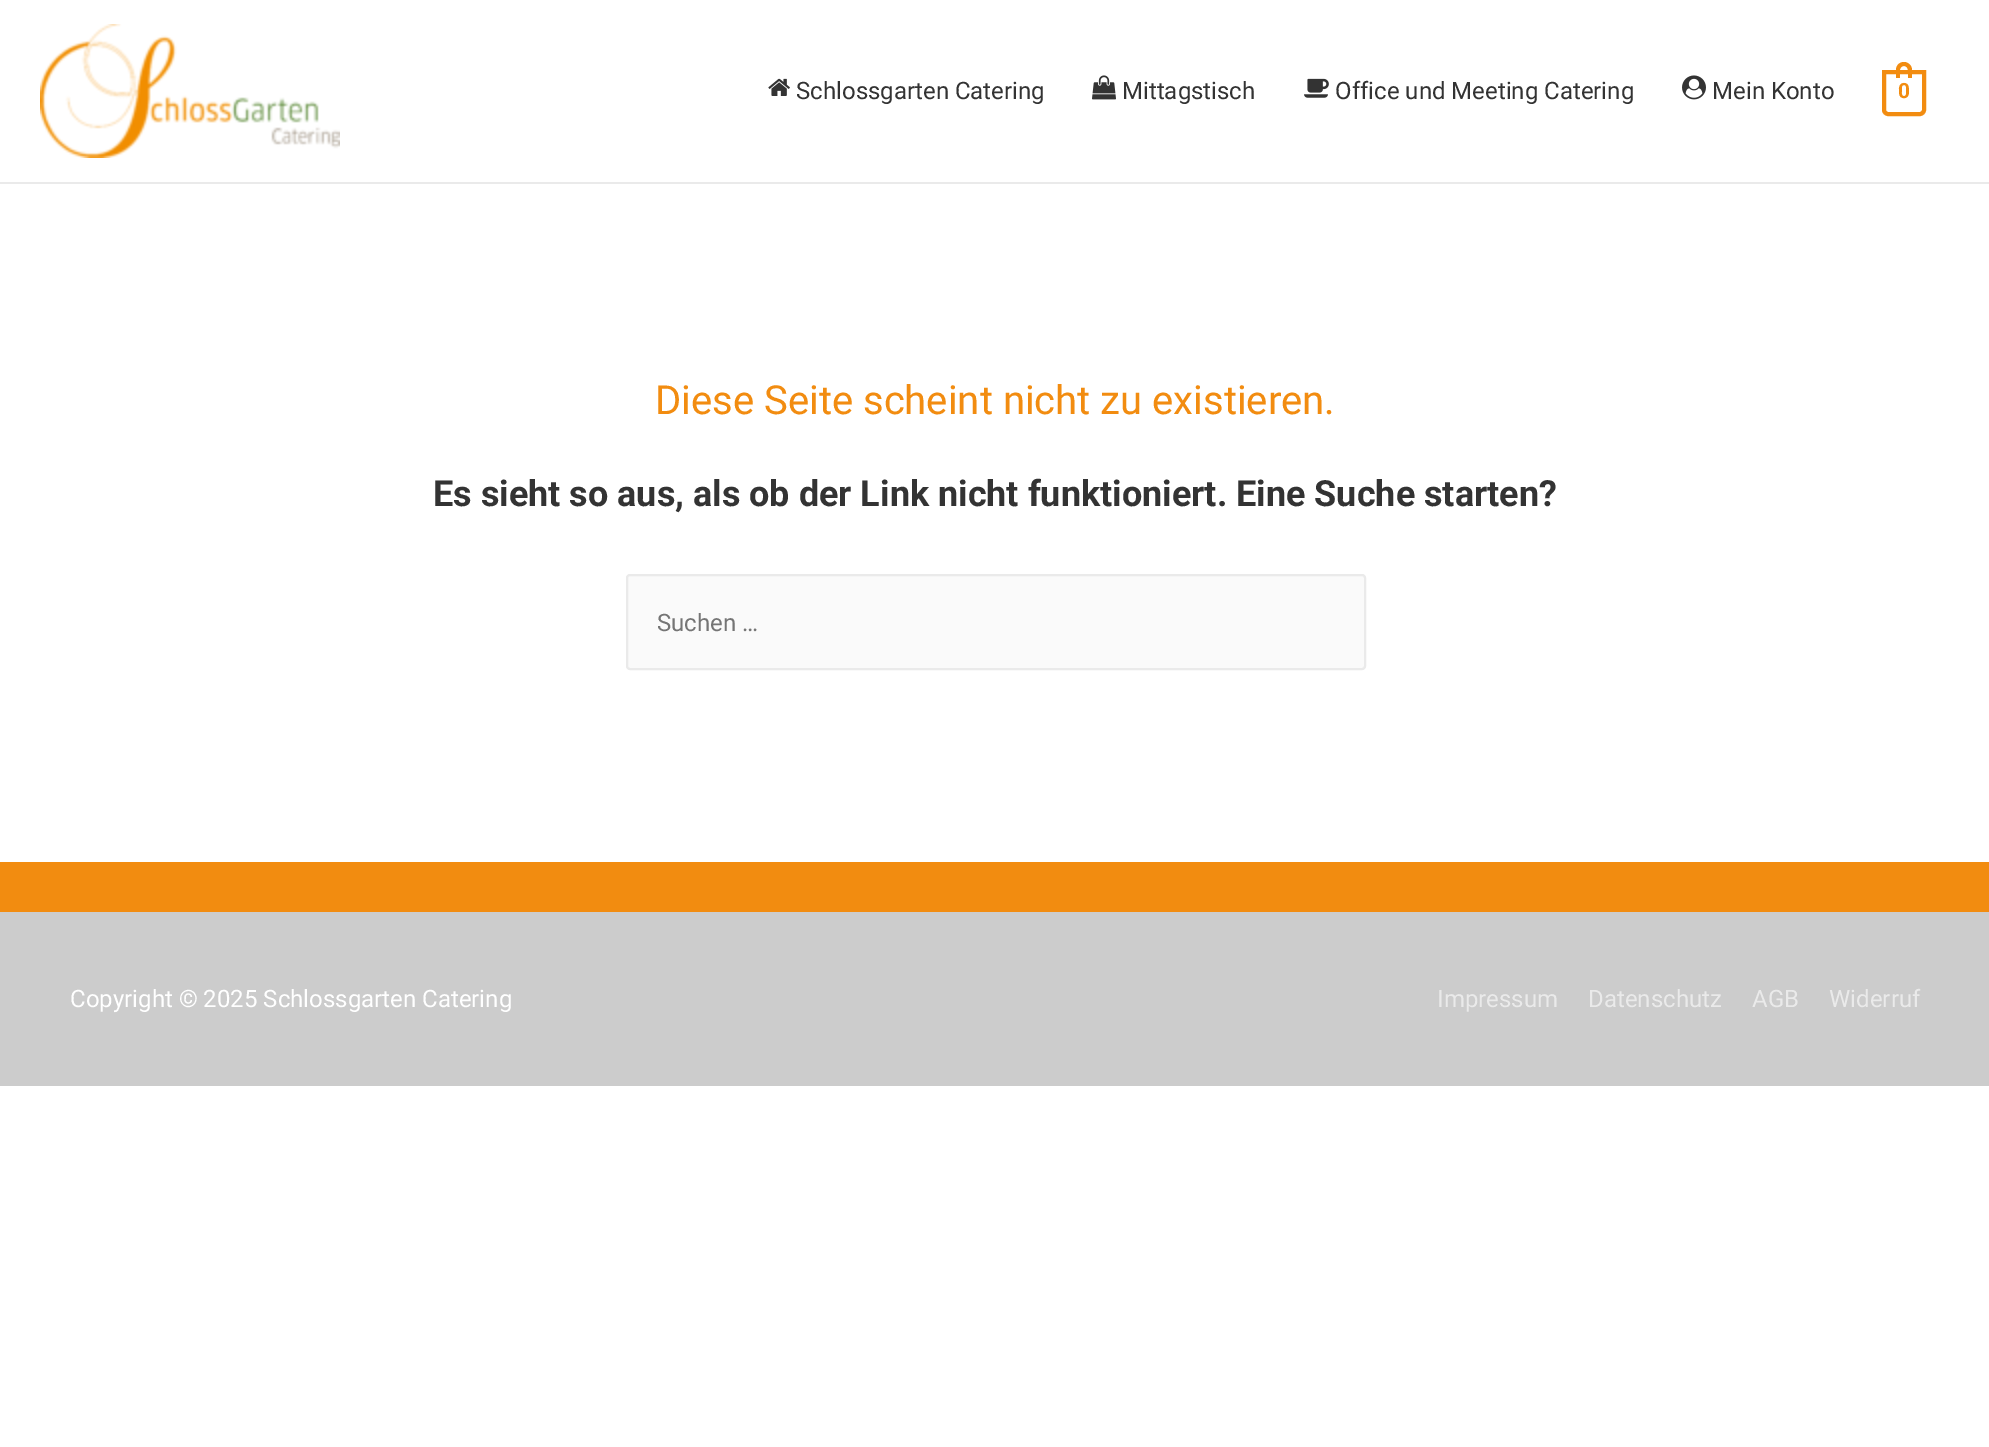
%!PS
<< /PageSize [1989 1447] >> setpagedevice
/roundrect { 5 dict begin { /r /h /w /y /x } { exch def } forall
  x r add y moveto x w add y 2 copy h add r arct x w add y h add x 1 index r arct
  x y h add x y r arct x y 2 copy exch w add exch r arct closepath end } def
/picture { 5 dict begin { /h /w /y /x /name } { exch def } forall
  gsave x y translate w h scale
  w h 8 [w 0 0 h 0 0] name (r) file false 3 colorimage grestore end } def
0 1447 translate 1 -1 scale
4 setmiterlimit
1 setgray
0 0 1989 1447 rectfill
0.918 setgray
0 182 1989 2 rectfill
(img1.rgb) 40 24 300 134 picture
(img2.rgb) 768 78 22 18 picture
/Roboto-Regular [24 0 0 -24 0 0] selectfont
0.2 setgray
796 99 moveto (Schlossgarten Catering) show
(img3.rgb) 1092 75 24 25 picture
1122 99 moveto (Mittagstisch) show
(img4.rgb) 1304 78 25 20 picture
1335 99 moveto (Office und Meeting Catering) show
(img5.rgb) 1682 75 24 25 picture
1712 99 moveto (Mein Konto) show
0.949 0.549 0.063 setrgbcolor
4 setlinewidth
newpath 1884 72 moveto 1924 72 lineto 1924 110 lineto 1924 112 1922 114 1920 114 curveto 1888 114 lineto 1886 114 1884 112 1884 110 curveto closepath stroke
newpath 1904 62 moveto 1908 62 1912 65.5 1912 70 curveto 1912 78 lineto 1896 78 lineto 1896 70 lineto 1896 65.5 1899.5 62 1904 62 curveto closepath 1904 66 moveto 1909.5 66 1908 74.5 1908 78 curveto 1900 78 lineto 1900 74.5 1898 66 1904 66 curveto closepath eofill
/Roboto-Bold [21 0 0 -21 0 0] selectfont
1898 98 moveto (0) show
/Roboto-Regular [40 0 0 -40 0 0] selectfont
655 414 moveto (Diese Seite scheint nicht zu existieren.) show
/Roboto-Bold [36 0 0 -36 0 0] selectfont
0.2 setgray
433 506 moveto (Es sieht so aus, als ob der Link nicht funktioniert. Eine Suche starten?) show
0.98 setgray
627 575 738 94 3 roundrect gsave fill grestore
0.918 setgray
2 setlinewidth
stroke
/Roboto-Regular [24 0 0 -24 0 0] selectfont
0.459 setgray
657 631 moveto (Suchen …) show
0.949 0.549 0.063 setrgbcolor
0 862 1989 50 rectfill
0.8 setgray
0 912 1989 174 rectfill
1 setgray
70 1007 moveto (Copyright © 2025 Schlossgarten Catering) show
0.918 setgray
1437 1007 moveto (Impressum) show
1588 1007 moveto (Datenschutz) show
1752 1007 moveto (AGB) show
1829 1007 moveto (Widerruf) show
showpage
